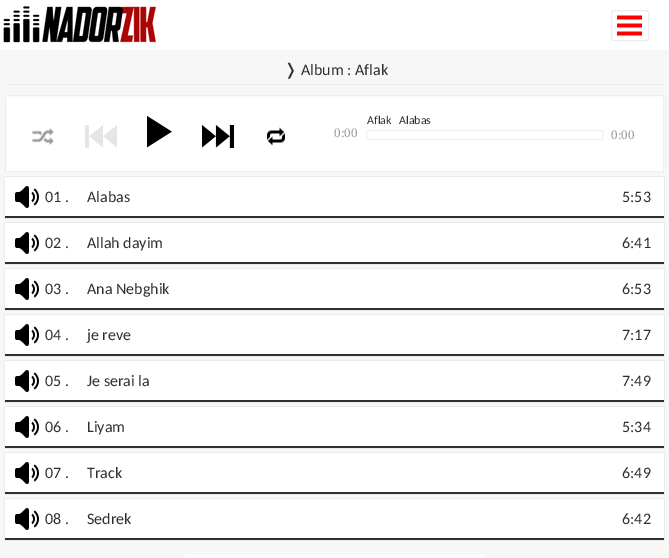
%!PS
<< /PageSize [669 558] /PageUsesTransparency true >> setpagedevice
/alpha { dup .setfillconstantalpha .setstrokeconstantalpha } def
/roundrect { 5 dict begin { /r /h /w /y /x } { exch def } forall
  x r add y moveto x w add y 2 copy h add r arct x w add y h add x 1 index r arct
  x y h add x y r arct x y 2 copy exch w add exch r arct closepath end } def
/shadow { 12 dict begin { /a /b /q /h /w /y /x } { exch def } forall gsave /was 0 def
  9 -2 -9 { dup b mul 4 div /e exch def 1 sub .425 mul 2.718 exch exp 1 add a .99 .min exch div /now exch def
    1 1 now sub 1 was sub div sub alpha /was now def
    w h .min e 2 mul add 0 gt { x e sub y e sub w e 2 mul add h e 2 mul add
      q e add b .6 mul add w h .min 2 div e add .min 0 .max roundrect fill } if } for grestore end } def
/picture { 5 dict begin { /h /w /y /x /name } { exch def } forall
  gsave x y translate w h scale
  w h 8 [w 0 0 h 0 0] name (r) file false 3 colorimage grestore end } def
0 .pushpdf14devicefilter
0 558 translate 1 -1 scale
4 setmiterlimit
0.969 setgray
0 0 669 558 rectfill
1 setgray
0 0 669 50 rectfill
(img1.rgb) 3 6 153 37 picture
1 0 0 setrgbcolor
611 10 38 31 3 roundrect fill
(img2.rgb) 611 10 38 31 picture
0.933 setgray
611.5 10.5 37 30 2.5 roundrect stroke
5 84 659 1 rectfill
/DejaVuSans-Regular [16 0 0 -16 0 0] selectfont
0.176 0.188 0.2 setrgbcolor
284 75 moveto (❭) show
/Carlito-Regular [16 0 0 -16 0 0] selectfont
301 75 moveto (Album : Aflak) show
1 setgray
newpath 5.5 95.5 moveto 663.5 95.5 lineto 663.5 171.5 lineto 5.5 171.5 lineto closepath gsave fill grestore
0.933 setgray
stroke
(img3.rgb) 32 128 22 17 picture
(img4.rgb) 85 125 32 23 picture
(img5.rgb) 147 116 25 32 picture
(img6.rgb) 202 125 32 23 picture
(img7.rgb) 267 127 18 19 picture
0.945 setgray
366.5 130.5 236 9 rectstroke
/Carlito-Regular [12 0 0 -12 0 0] selectfont
0.176 0.188 0.2 setrgbcolor
367 124 moveto (Aflak) show
399 124 moveto (Alabas) show
/LiberationSerif-Regular [13 0 0 -13 0 0] selectfont
0.6 setgray
334 137 moveto (0:00) show
611 139 moveto (0:00) show
0.8 setgray
5 177 659 41 0 0.5 1 shadow
1 setgray
5 177 659 39 rectfill
(img8.rgb) 15 186 24 22 picture
0.176 0.188 0.2 setrgbcolor
5 216 659 2 rectfill
/Carlito-Regular [16 0 0 -16 0 0] selectfont
45 202 moveto (01 .) show
87 202 moveto (Alabas) show
622 202 moveto (5:53) show
0.8 setgray
5 223 659 41 0 0.5 1 shadow
1 setgray
5 223 659 39 rectfill
(img8.rgb) 15 232 24 22 picture
0.176 0.188 0.2 setrgbcolor
5 262 659 2 rectfill
45 248 moveto (02 .) show
87 248 moveto (Allah dayim) show
622 248 moveto (6:41) show
0.8 setgray
5 269 659 41 0 0.5 1 shadow
1 setgray
5 269 659 39 rectfill
(img8.rgb) 15 278 24 22 picture
0.176 0.188 0.2 setrgbcolor
5 308 659 2 rectfill
45 294 moveto (03 .) show
87 294 moveto (Ana Nebghik) show
622 294 moveto (6:53) show
0.8 setgray
5 315 659 41 0 0.5 1 shadow
1 setgray
5 315 659 39 rectfill
(img8.rgb) 15 324 24 22 picture
0.176 0.188 0.2 setrgbcolor
5 354 659 2 rectfill
45 340 moveto (04 .) show
87 340 moveto (je reve) show
622 340 moveto (7:17) show
0.8 setgray
5 361 659 41 0 0.5 1 shadow
1 setgray
5 361 659 39 rectfill
(img8.rgb) 15 370 24 22 picture
0.176 0.188 0.2 setrgbcolor
5 400 659 2 rectfill
45 386 moveto (05 .) show
87 386 moveto (Je serai la) show
622 386 moveto (7:49) show
0.8 setgray
5 407 659 41 0 0.5 1 shadow
1 setgray
5 407 659 39 rectfill
(img8.rgb) 15 416 24 22 picture
0.176 0.188 0.2 setrgbcolor
5 446 659 2 rectfill
45 432 moveto (06 .) show
87 432 moveto (Liyam) show
622 432 moveto (5:34) show
0.8 setgray
5 453 659 41 0 0.5 1 shadow
1 setgray
5 453 659 39 rectfill
(img8.rgb) 15 462 24 22 picture
0.176 0.188 0.2 setrgbcolor
5 492 659 2 rectfill
45 478 moveto (07 .) show
87 478 moveto (Track) show
622 478 moveto (6:49) show
0.8 setgray
5 499 659 41 0 0.5 1 shadow
1 setgray
5 499 659 39 rectfill
(img8.rgb) 15 508 24 22 picture
0.176 0.188 0.2 setrgbcolor
5 538 659 2 rectfill
45 524 moveto (08 .) show
87 524 moveto (Sedrek) show
622 524 moveto (6:42) show
1 setgray
185 555 300 3 rectfill
.poppdf14devicefilter showpage
